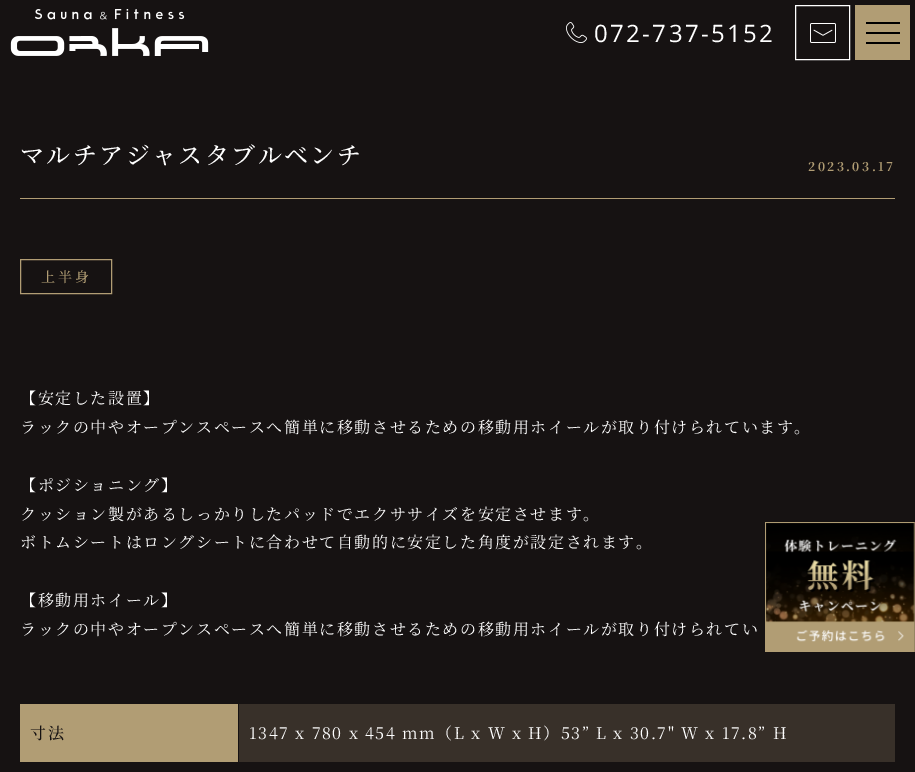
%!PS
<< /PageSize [915 772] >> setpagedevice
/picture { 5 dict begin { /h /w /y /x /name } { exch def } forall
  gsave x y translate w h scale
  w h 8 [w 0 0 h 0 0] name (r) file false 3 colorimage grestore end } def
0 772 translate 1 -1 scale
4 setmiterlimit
0.086 0.071 0.071 setrgbcolor
0 0 915 772 rectfill
(img1.rgb) 10 9 199 47 picture
(img2.rgb) 566 22 21 21 picture
/OpenSans-Regular [24 0 0 -24 0 0] selectfont
1 setgray
594 42 moveto 2.4 0 (072-737-5152) ashow
795.5 5.5 54 54 rectstroke
(img3.rgb) 810 23 26 20 picture
0.694 0.616 0.455 setrgbcolor
855 5 55 55 rectfill
0 setgray
866 32 34 2 rectfill
866 22 34 2 rectfill
866 42 34 2 rectfill
0.694 0.616 0.455 setrgbcolor
20 198 875 1 rectfill
/NotoSerifJP-Medium [24 0 0 -24 0 0] selectfont
1 setgray
20 164 moveto 2.4 0 (マルチアジャスタブルベンチ) ashow
/NotoSerifJP-Bold [12 0 0 -12 0 0] selectfont
0.694 0.616 0.455 setrgbcolor
808 171 moveto 2.4 0 (2023.03.17) ashow
20.5 259.5 91 34 rectstroke
/NotoSerifJP-Medium [14 0 0 -14 0 0] selectfont
41 282 moveto 3 0 (上半身) ashow
/NotoSerifJP-Regular [16 0 0 -16 0 0] selectfont
1 setgray
20 404 moveto 1.6 0 (【安定した設置】) ashow
20 433 moveto 1.6 0 (ラックの中やオープンスペースへ簡単に移動させるための移動用ホイールが取り付けられています。) ashow
20 491 moveto 1.6 0 (【ポジショニング】) ashow
20 520 moveto 1.6 0 (クッション製があるしっかりしたパッドでエクササイズを安定させます。) ashow
20 548 moveto 1.6 0 (ボトムシートはロングシートに合わせて自動的に安定した角度が設定されます。) ashow
20 606 moveto 1.6 0 (【移動用ホイール】) ashow
20 635 moveto 1.6 0 (ラックの中やオープンスペースへ簡単に移動させるための移動用ホイールが取り付けられてい) ashow
0.694 0.616 0.455 setrgbcolor
20 704 218 58 rectfill
/NotoSerifJP-Medium [16 0 0 -16 0 0] selectfont
0.086 0.071 0.071 setrgbcolor
30 739 moveto 1.6 0 (寸法) ashow
0.22 0.188 0.161 setrgbcolor
239 704 656 58 rectfill
/NotoSerifJP-Regular [16 0 0 -16 0 0] selectfont
1 setgray
249 739 moveto 1.6 0 (1347 x 780 x 454 mm（L x W x H）53” L x 30.7" W x 17.8” H) ashow
(img4.rgb) 765 522 150 130 picture
showpage
